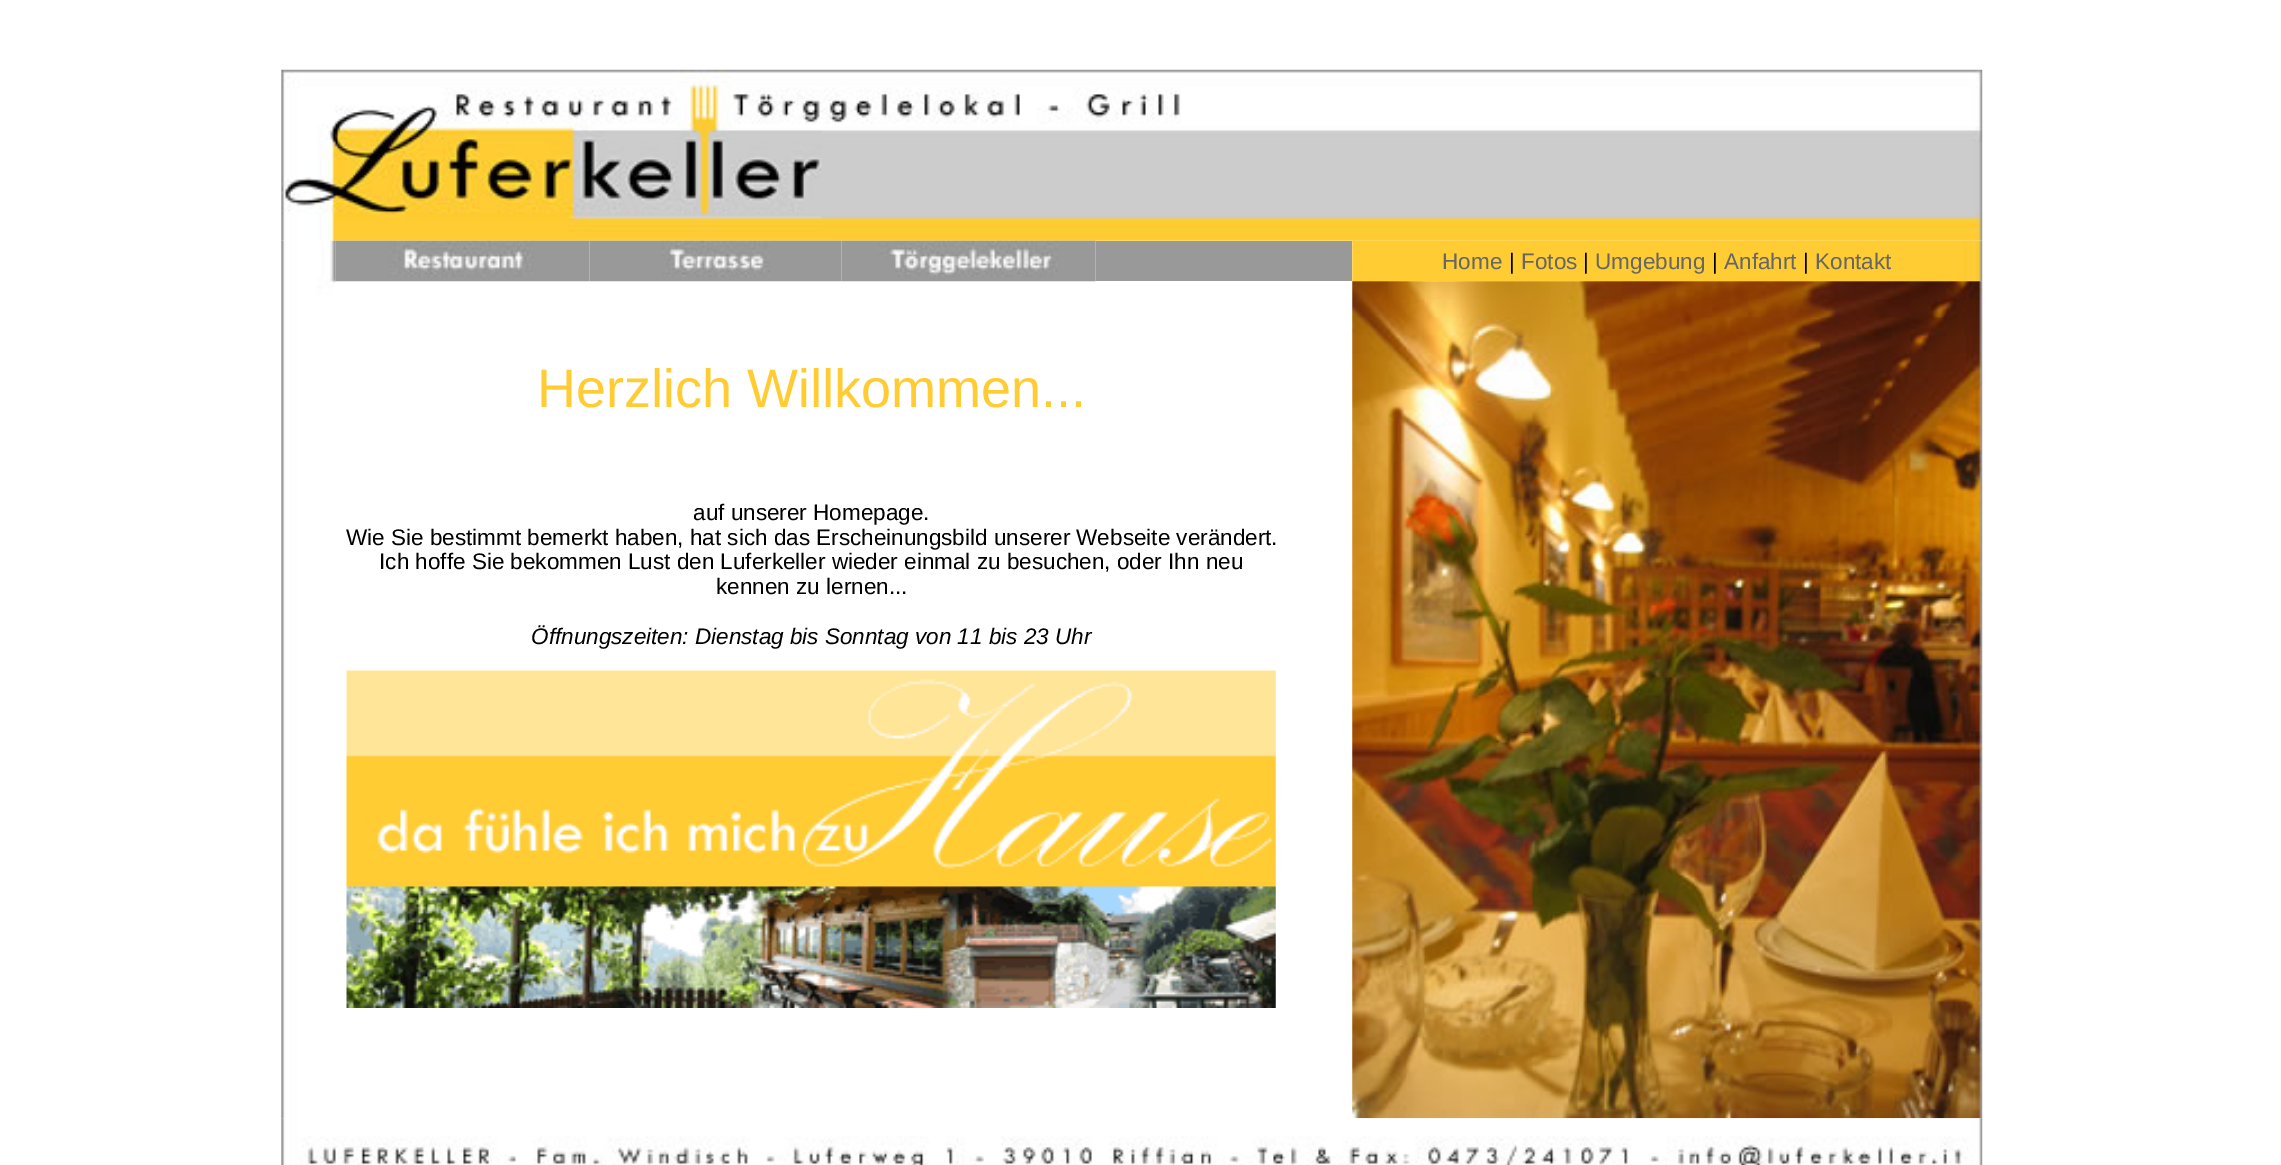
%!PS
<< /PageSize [2281 1165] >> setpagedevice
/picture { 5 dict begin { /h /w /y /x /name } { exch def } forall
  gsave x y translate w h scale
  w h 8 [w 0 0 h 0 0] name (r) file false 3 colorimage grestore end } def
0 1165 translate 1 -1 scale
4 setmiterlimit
1 setgray
0 0 2281 1165 rectfill
(img6.rgb) 1352 240 631 42 picture
(img1.rgb) 281 69 1702 172 picture
(img2.rgb) 281 240 55 879 picture
(img3.rgb) 335 240 255 42 picture
(img4.rgb) 589 240 253 42 picture
(img5.rgb) 841 240 255 42 picture
0.6 setgray
1096 241 256 40 rectfill
/LiberationSans-Regular [22.5 0 0 -22.5 0 0] selectfont
0.4 setgray
1442 269 moveto (Home) show
0 setgray
1509 269 moveto (|) show
0.4 setgray
1521 269 moveto (Fotos) show
0 setgray
1583 269 moveto (|) show
0.4 setgray
1595 269 moveto (Umgebung) show
0 setgray
1712 269 moveto (|) show
0.4 setgray
1724 269 moveto (Anfahrt) show
0 setgray
1803 269 moveto (|) show
0.4 setgray
1815 269 moveto (Kontakt) show
/LiberationSans-Regular [54 0 0 -54 0 0] selectfont
1 0.8 0.2 setrgbcolor
537 407 moveto (Herzlich Willkommen...) show
/LiberationSans-Regular [22.5 0 0 -22.5 0 0] selectfont
0 setgray
693 520 moveto (auf unserer Homepage.) show
346 545 moveto (Wie Sie bestimmt bemerkt haben, hat sich das Erscheinungsbild unserer Webseite verändert.) show
379 569 moveto (Ich hoffe Sie bekommen Lust den Luferkeller wieder einmal zu besuchen, oder Ihn neu) show
716 594 moveto (kennen zu lernen...) show
/LiberationSans-Italic [22.5 0 0 -22.5 0 0] selectfont
531 644 moveto (Öffnungszeiten: Dienstag bis Sonntag von 11 bis 23 Uhr) show
(img7.rgb) 346 670 930 338 picture
(img8.rgb) 1352 281 631 838 picture
(img9.rgb) 281 1118 1702 47 picture
showpage
